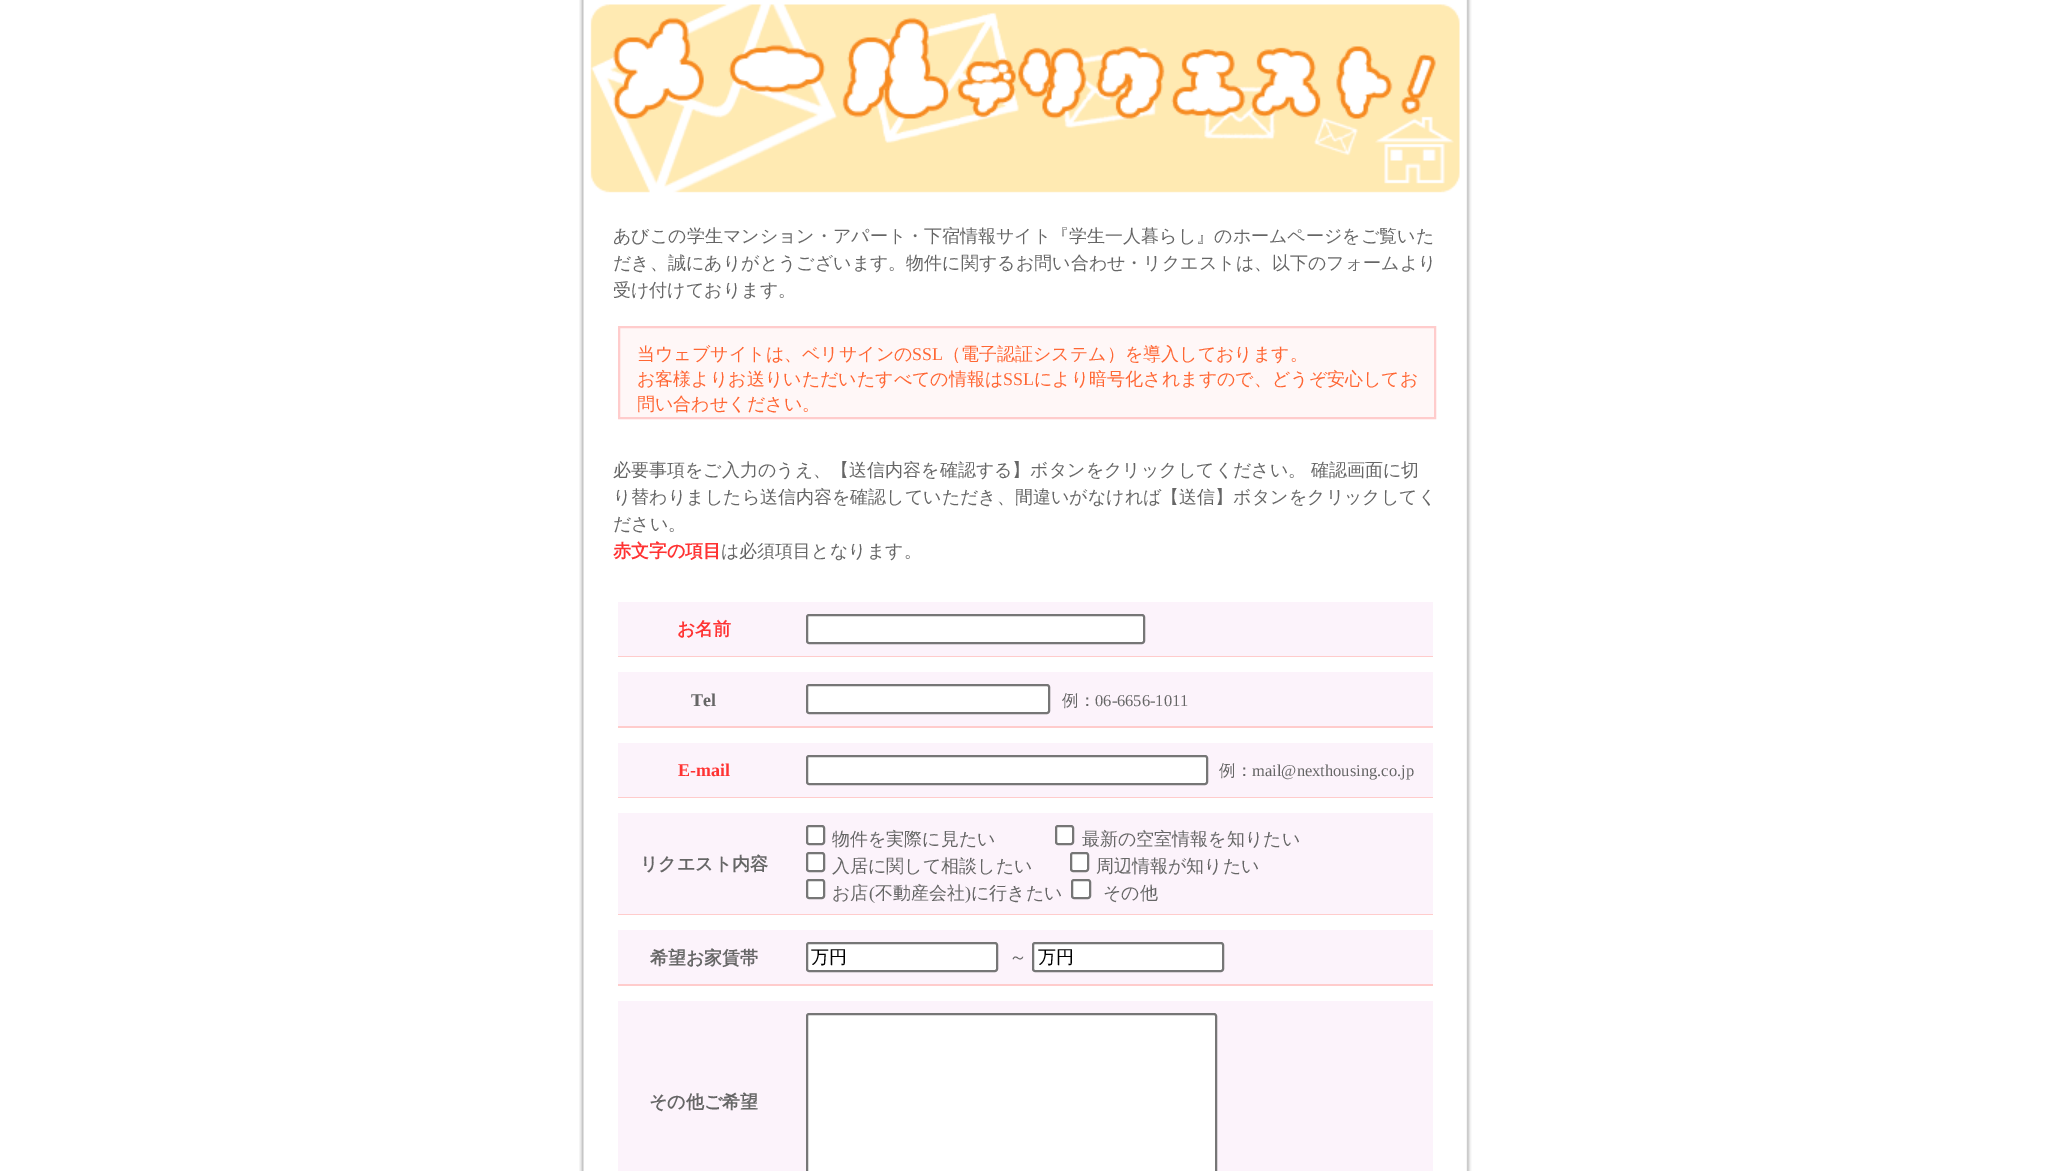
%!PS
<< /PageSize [2048 1171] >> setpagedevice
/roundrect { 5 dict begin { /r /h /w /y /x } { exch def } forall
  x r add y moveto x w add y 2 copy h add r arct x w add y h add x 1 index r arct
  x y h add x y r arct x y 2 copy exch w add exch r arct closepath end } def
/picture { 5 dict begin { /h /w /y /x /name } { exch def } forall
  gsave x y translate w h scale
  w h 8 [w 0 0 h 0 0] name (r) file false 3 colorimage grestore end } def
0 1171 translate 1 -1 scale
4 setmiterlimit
1 setgray
0 0 2048 1171 rectfill
(img1.rgb) 579 0 893 1171 picture
(img2.rgb) 590 4 870 189 picture
/WenQuanYiZenHei-Medium [18 0 0 -18 0 0] selectfont
0.4 setgray
613 242 moveto (あびこの学生マンション・アパート・下宿情報サイト『学生一人暮らし』のホームページをご覧いた) show
613 269 moveto (だき、誠にありがとうございます。物件に関するお問い合わせ・リクエストは、以下のフォームより) show
613 296 moveto (受け付けております。) show
1 0.969 0.969 setrgbcolor
newpath 619 327 moveto 1435 327 lineto 1435 418 lineto 619 418 lineto closepath gsave fill grestore
1 0.8 0.8 setrgbcolor
2 setlinewidth
stroke
1 0.4 0.2 setrgbcolor
637 360 moveto (当ウェブサイトは、ベリサインの) show
/LiberationSerif-Regular [18 0 0 -18 0 0] selectfont
912 360 moveto (SSL) show
/WenQuanYiZenHei-Medium [18 0 0 -18 0 0] selectfont
943 360 moveto (（電子認証システム）を導入しております。) show
637 385 moveto (お客様よりお送りいただいたすべての情報は) show
/LiberationSerif-Regular [18 0 0 -18 0 0] selectfont
1003 385 moveto (SSL) show
/WenQuanYiZenHei-Medium [18 0 0 -18 0 0] selectfont
1034 385 moveto (により暗号化されますので、どうぞ安心してお) show
637 410 moveto (問い合わせください。) show
0.4 setgray
613 476 moveto (必要事項をご入力のうえ、【送信内容を確認する】ボタンをクリックしてください。) show
1311 476 moveto (確認画面に切) show
613 503 moveto (り替わりましたら送信内容を確認していただき、間違いがなければ【送信】ボタンをクリックしてく) show
613 530 moveto (ださい。) show
/WenQuanYiZenHei-Bold [18 0 0 -18 0 0] selectfont
1 0.2 0.2 setrgbcolor
613 557 moveto (赤文字の項目) show
/WenQuanYiZenHei-Medium [18 0 0 -18 0 0] selectfont
0.4 setgray
721 557 moveto (は必須項目となります。) show
0.988 0.953 0.984 setrgbcolor
618 602 815 54 rectfill
1 0.8 0.8 setrgbcolor
618 656 815 1 rectfill
/WenQuanYiZenHei-Bold [18 0 0 -18 0 0] selectfont
1 0.2 0.2 setrgbcolor
677 635 moveto (お名前) show
1 setgray
807 615 337 28 2 roundrect gsave fill grestore
0.463 setgray
stroke
0.988 0.953 0.984 setrgbcolor
618 672 815 54 rectfill
1 0.8 0.8 setrgbcolor
618 726 815 2 rectfill
/LiberationSerif-Bold [18 0 0 -18 0 0] selectfont
0.4 setgray
691 706 moveto (Tel) show
1 setgray
807 685 242 28 2 roundrect gsave fill grestore
0.463 setgray
stroke
/WenQuanYiZenHei-Medium [16.5 0 0 -16.5 0 0] selectfont
0.4 setgray
1062 706 moveto (例：) show
/LiberationSerif-Regular [16.5 0 0 -16.5 0 0] selectfont
1095 706 moveto (06-6656-1011) show
0.988 0.953 0.984 setrgbcolor
618 743 815 54 rectfill
1 0.8 0.8 setrgbcolor
618 797 815 1 rectfill
/LiberationSerif-Bold [18 0 0 -18 0 0] selectfont
1 0.2 0.2 setrgbcolor
678 776 moveto (E-mail) show
1 setgray
807 756 400 28 2 roundrect gsave fill grestore
0.463 setgray
stroke
/WenQuanYiZenHei-Medium [16.5 0 0 -16.5 0 0] selectfont
0.4 setgray
1219 776 moveto (例：) show
/LiberationSerif-Regular [16.5 0 0 -16.5 0 0] selectfont
1252 776 moveto (mail@nexthousing.co.jp) show
0.988 0.953 0.984 setrgbcolor
618 813 815 101 rectfill
1 0.8 0.8 setrgbcolor
618 914 815 1 rectfill
/WenQuanYiZenHei-Bold [18 0 0 -18 0 0] selectfont
0.4 setgray
640 870 moveto (リクエスト内容) show
1 setgray
807 826 17 18 2 roundrect gsave fill grestore
0.463 setgray
stroke
/WenQuanYiZenHei-Medium [18 0 0 -18 0 0] selectfont
0.4 setgray
832 845 moveto (物件を実際に見たい) show
1 setgray
1056 826 17 18 2 roundrect gsave fill grestore
0.463 setgray
stroke
0.4 setgray
1082 845 moveto (最新の空室情報を知りたい) show
1 setgray
807 853 17 18 2 roundrect gsave fill grestore
0.463 setgray
stroke
0.4 setgray
832 872 moveto (入居に関して相談したい) show
1 setgray
1071 853 17 18 2 roundrect gsave fill grestore
0.463 setgray
stroke
0.4 setgray
1096 872 moveto (周辺情報が知りたい) show
1 setgray
807 880 17 18 2 roundrect gsave fill grestore
0.463 setgray
stroke
0.4 setgray
832 899 moveto (お店) show
/LiberationSerif-Regular [18 0 0 -18 0 0] selectfont
869 899 moveto (\() show
/WenQuanYiZenHei-Medium [18 0 0 -18 0 0] selectfont
875 899 moveto (不動産会社) show
/LiberationSerif-Regular [18 0 0 -18 0 0] selectfont
965 899 moveto (\)) show
/WenQuanYiZenHei-Medium [18 0 0 -18 0 0] selectfont
971 899 moveto (に行きたい) show
1 setgray
1072 880 18 18 2 roundrect gsave fill grestore
0.463 setgray
stroke
0.4 setgray
1103 899 moveto (その他) show
0.988 0.953 0.984 setrgbcolor
618 930 815 54 rectfill
1 0.8 0.8 setrgbcolor
618 984 815 2 rectfill
/WenQuanYiZenHei-Bold [18 0 0 -18 0 0] selectfont
0.4 setgray
650 964 moveto (希望お家賃帯) show
1 setgray
807 943 190 28 2 roundrect gsave fill grestore
0.463 setgray
stroke
/WenQuanYiZenHei-Medium [18 0 0 -18 0 0] selectfont
0 setgray
811 963 moveto (万円) show
0.4 setgray
1009 963 moveto (～) show
1 setgray
1033 943 190 28 2 roundrect gsave fill grestore
0.463 setgray
stroke
0 setgray
1038 963 moveto (万円) show
0.988 0.953 0.984 setrgbcolor
618 1001 815 170 rectfill
/WenQuanYiZenHei-Bold [18 0 0 -18 0 0] selectfont
0.4 setgray
649 1108 moveto (その他ご希望) show
1 setgray
807 1014 409 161 2 roundrect gsave fill grestore
0.463 setgray
stroke
showpage
